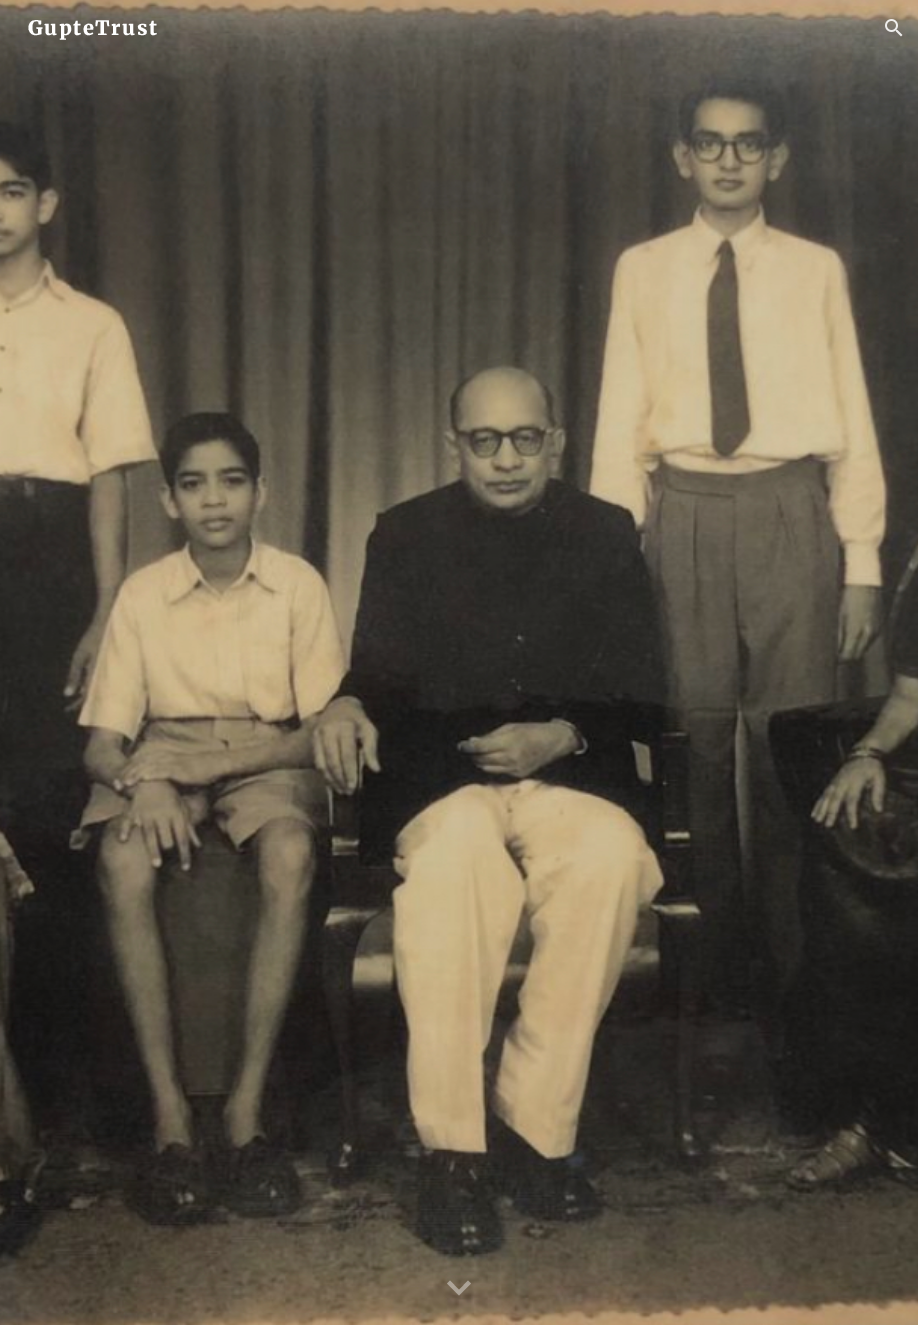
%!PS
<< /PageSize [918 1325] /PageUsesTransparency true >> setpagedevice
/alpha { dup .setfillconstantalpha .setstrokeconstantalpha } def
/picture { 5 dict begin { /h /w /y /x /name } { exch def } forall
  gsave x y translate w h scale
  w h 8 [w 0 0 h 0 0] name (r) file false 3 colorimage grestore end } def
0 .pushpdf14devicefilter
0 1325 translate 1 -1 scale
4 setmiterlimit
1 setgray
0 0 918 1325 rectfill
(img1.rgb) 0 0 918 1325 picture
0.4 alpha
newpath 450 1280.5 moveto 459 1290 lineto 468 1280.5 lineto 471 1283.5 lineto 459 1295.5 lineto 447 1283.5 lineto closepath fill
/Merriweather-Black [20 0 0 -20 0 0] selectfont
1 alpha
28 35 moveto 1.5 0 (GupteTrust) ashow
(img2.rgb) 885 19 18 18 picture
.poppdf14devicefilter showpage
